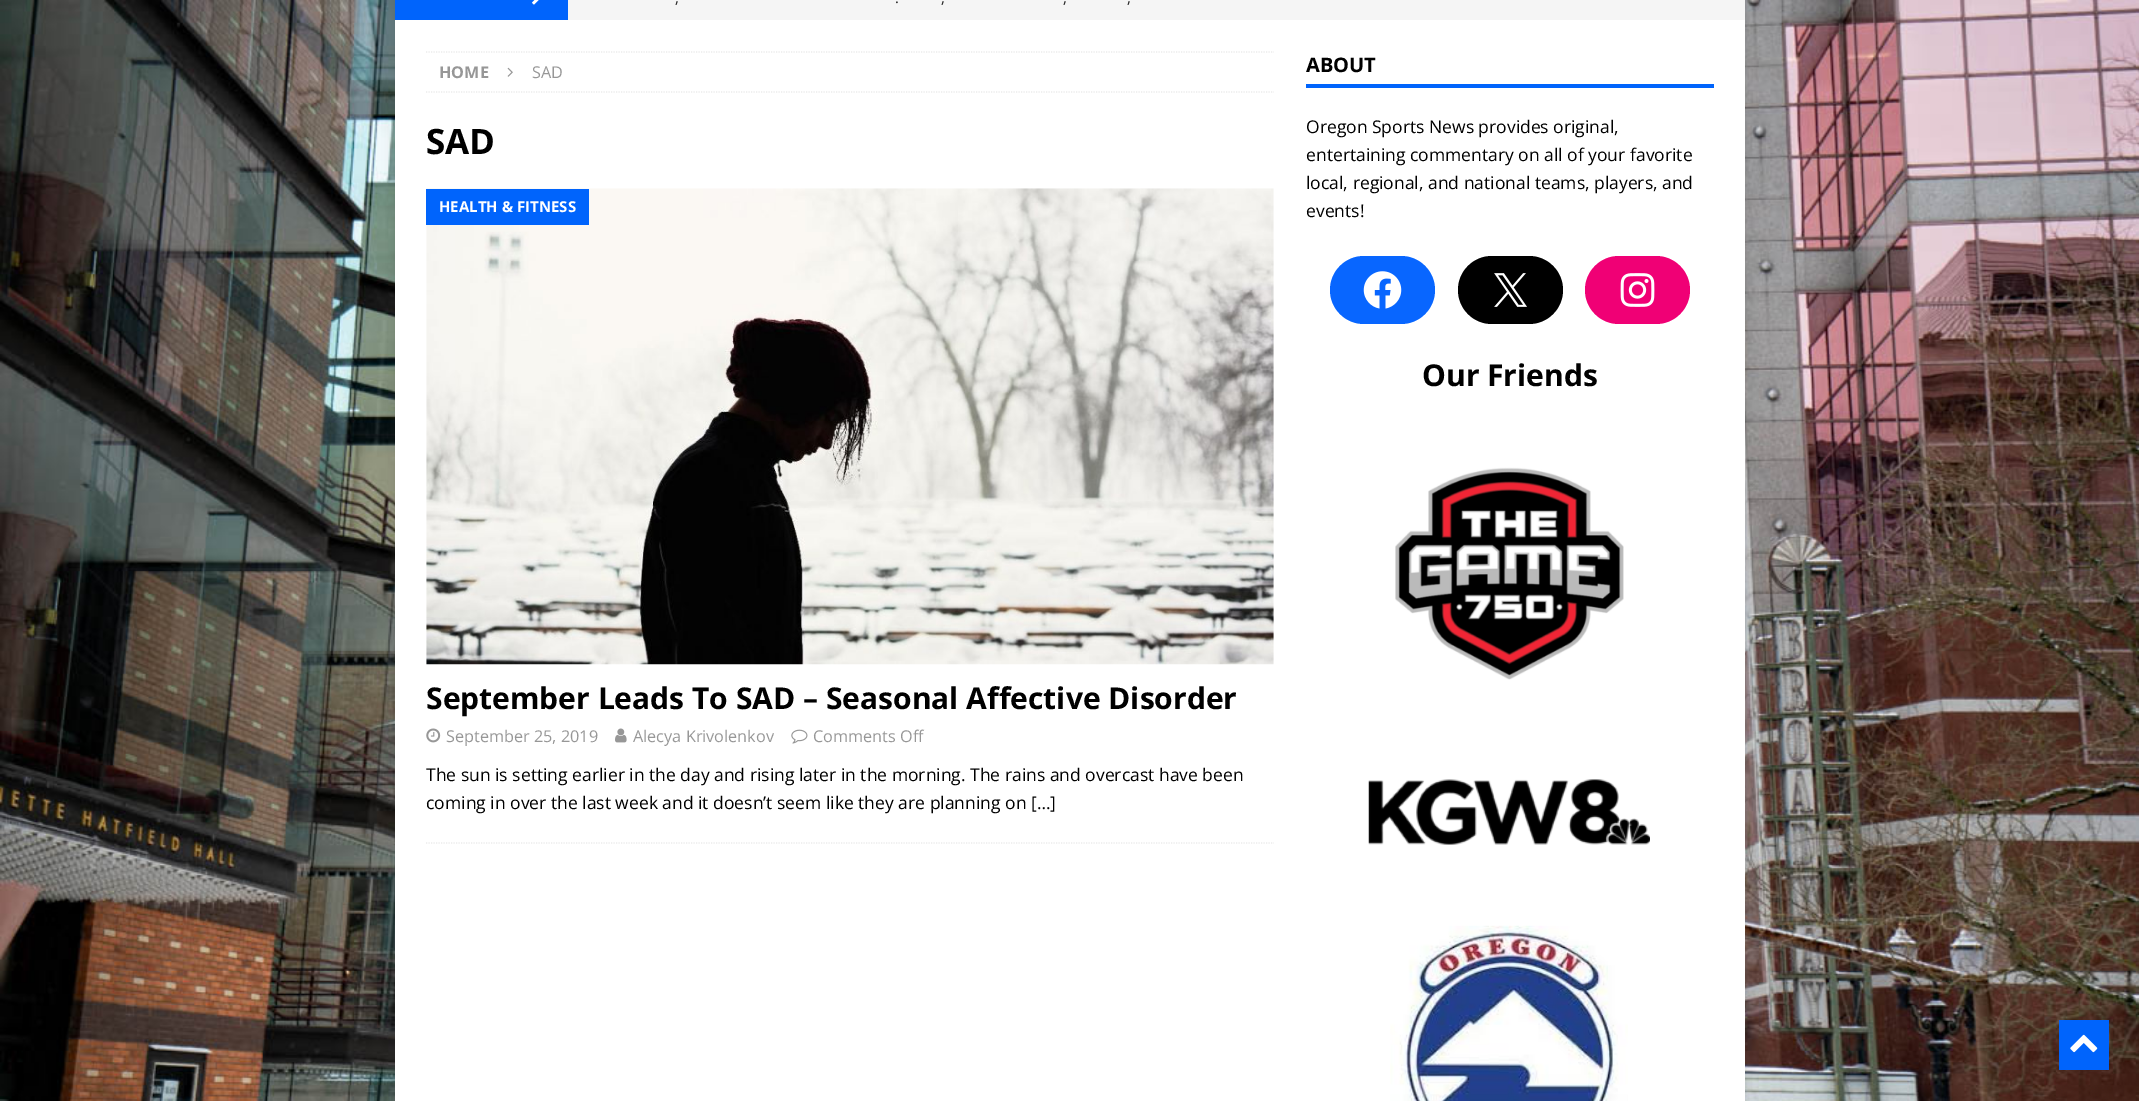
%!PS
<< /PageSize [2139 1101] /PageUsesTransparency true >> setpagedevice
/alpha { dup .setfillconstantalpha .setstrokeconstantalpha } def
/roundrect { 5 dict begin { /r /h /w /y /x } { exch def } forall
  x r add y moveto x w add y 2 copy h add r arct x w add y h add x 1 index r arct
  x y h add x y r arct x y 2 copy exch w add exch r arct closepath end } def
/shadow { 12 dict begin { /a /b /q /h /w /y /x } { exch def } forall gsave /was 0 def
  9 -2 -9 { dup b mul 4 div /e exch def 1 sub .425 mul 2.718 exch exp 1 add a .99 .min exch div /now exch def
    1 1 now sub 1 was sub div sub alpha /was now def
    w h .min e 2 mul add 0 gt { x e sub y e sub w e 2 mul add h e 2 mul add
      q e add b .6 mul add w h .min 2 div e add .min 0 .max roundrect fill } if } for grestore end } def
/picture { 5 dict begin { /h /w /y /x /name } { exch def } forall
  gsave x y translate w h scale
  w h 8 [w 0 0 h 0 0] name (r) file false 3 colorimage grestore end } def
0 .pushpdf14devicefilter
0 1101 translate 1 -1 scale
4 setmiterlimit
1 setgray
0 0 2139 1101 rectfill
(img1.rgb) 0 0 2139 1101 picture
0.196 setgray
395 -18 1350 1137 0 6 0.17 shadow
0.961 setgray
568 0 1177 20 rectfill
0 0.392 0.988 setrgbcolor
395 0 173 20 rectfill
(img2.rgb) 532 0 7 5 picture
/OpenSans-Regular [15 0 0 -15 0 0] selectfont
0.165 setgray
675 3 moveto (,) show
895 3 moveto (.) show
941 3 moveto (,) show
1063 3 moveto (,) show
1127 3 moveto (,) show
1 setgray
395 20 1350 1081 rectfill
0.922 setgray
1.2 setlinewidth
[1.25 1.25] 0 setdash
newpath 426 52 moveto 1274 52 lineto stroke
newpath 426 92 moveto 1274 92 lineto stroke
/OpenSans-Bold [16.25 0 0 -16.25 0 0] selectfont
0.592 setgray
439 78 moveto (HOME) show
(img3.rgb) 507 67 6 10 picture
/OpenSans-Regular [16.25 0 0 -16.25 0 0] selectfont
532 78 moveto (SAD) show
/OpenSans-Bold [35 0 0 -35 0 0] selectfont
0 setgray
426 154 moveto (SAD) show
0.922 setgray
newpath 426 843 moveto 1274 843 lineto stroke
(img4.rgb) 426 188 848 477 picture
0 0.392 0.988 setrgbcolor
426 189 163 36 rectfill
/OpenSans-Bold [15 0 0 -15 0 0] selectfont
1 setgray
439 212 moveto (HEALTH & FITNESS) show
/OpenSans-Bold [30 0 0 -30 0 0] selectfont
0 setgray
426 709 moveto (September Leads To SAD – Seasonal Affective Disorder) show
(img5.rgb) 426 728 15 15 picture
/OpenSans-Regular [16.25 0 0 -16.25 0 0] selectfont
0.592 setgray
446 742 moveto (September 25, 2019) show
(img6.rgb) 615 728 12 15 picture
633 742 moveto (Alecya Krivolenkov) show
(img7.rgb) 791 729 17 15 picture
813 742 moveto (Comments Off) show
/OpenSans-Regular [17.5 0 0 -17.5 0 0] selectfont
0 setgray
426 781 moveto (The sun is setting earlier in the day and rising later in the morning. The rains and overcast have been) show
426 809 moveto (coming in over the last week and it doesn’t seem like they are planning on […]) show
0 0.392 0.988 setrgbcolor
1306 84 408 4 rectfill
/OpenSans-Bold [20 0 0 -20 0 0] selectfont
0 setgray
1306 72 moveto (ABOUT) show
/OpenSans-Regular [17.5 0 0 -17.5 0 0] selectfont
1306 133 moveto (Oregon Sports News provides original,) show
1306 161 moveto (entertaining commentary on all of your favorite) show
1306 189 moveto (local, regional, and national teams, players, and) show
1306 217 moveto (events!) show
0.031 0.4 1 setrgbcolor
1330 256 105 68 34 roundrect fill
(img8.rgb) 1363 271 39 38 picture
0 setgray
1458 256 105 68 34 roundrect fill
(img9.rgb) 1494 273 33 34 picture
0.941 0 0.459 setrgbcolor
1585 256 105 68 34 roundrect fill
(img10.rgb) 1620 273 35 34 picture
/OpenSans-Bold [30 0 0 -30 0 0] selectfont
0 setgray
1422 386 moveto (Our Friends) show
(img11.rgb) 1395 467 229 213 picture
(img12.rgb) 1368 779 282 66 picture
(img13.rgb) 1390 925 238 176 picture
0 0.392 0.988 setrgbcolor
2059 1020 50 50 rectfill
(img14.rgb) 2070 1034 28 19 picture
.poppdf14devicefilter showpage
